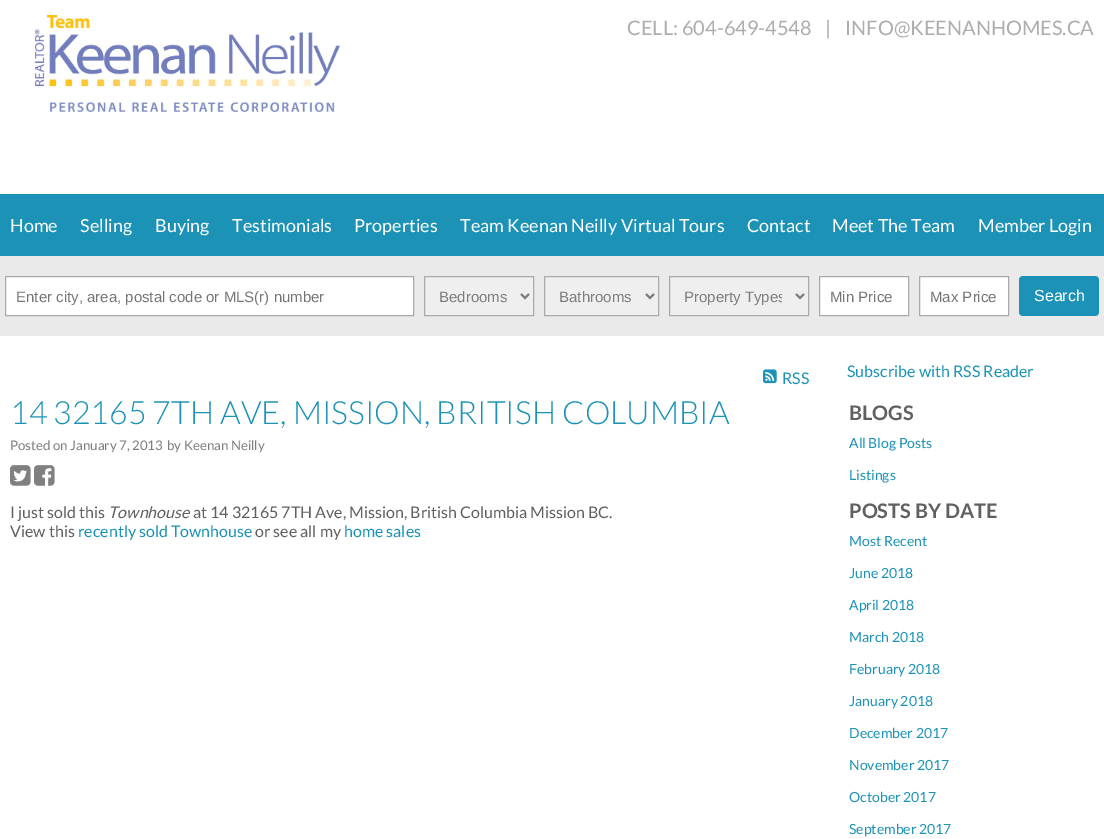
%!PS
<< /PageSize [1104 839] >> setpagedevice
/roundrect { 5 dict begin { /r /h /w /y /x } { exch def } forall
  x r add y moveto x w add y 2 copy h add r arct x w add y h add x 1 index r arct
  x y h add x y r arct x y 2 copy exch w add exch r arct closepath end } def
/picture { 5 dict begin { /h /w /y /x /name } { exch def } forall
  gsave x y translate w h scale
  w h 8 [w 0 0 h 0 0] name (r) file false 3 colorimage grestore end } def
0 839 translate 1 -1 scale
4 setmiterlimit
1 setgray
0 0 1104 839 rectfill
(img1.rgb) 35 15 305 97 picture
/Lato-Regular [20 0 0 -20 0 0] selectfont
0.678 setgray
627 35 moveto (CELL: 604-649-4548) show
825 35 moveto (|) show
845 35 moveto (INFO@KEENANHOMES.CA) show
0.106 0.573 0.714 setrgbcolor
0 194 1104 62 rectfill
/Lato-Regular [18 0 0 -18 0 0] selectfont
1 setgray
10 232 moveto (Home) show
80 232 moveto (Selling) show
155 232 moveto (Buying) show
232 232 moveto (Testimonials) show
354 232 moveto (Properties) show
460 232 moveto (Team Keenan Neilly Virtual Tours) show
747 232 moveto (Contact) show
832 232 moveto (Meet The Team) show
978 232 moveto (Member Login) show
0.918 setgray
0 256 1104 80 rectfill
1 setgray
newpath 5.5 276.5 moveto 413.5 276.5 lineto 413.5 315.5 lineto 5.5 315.5 lineto closepath gsave fill grestore
0.667 setgray
stroke
gsave
16 288 387 17 rectclip
/LiberationSans-Regular [15 0 0 -15 0 0] selectfont
0.459 setgray
16 302 moveto (Enter city, area, postal code or MLS\(r\) number) show
grestore
0.937 setgray
newpath 424.5 276.5 moveto 533.5 276.5 lineto 533.5 315.5 lineto 424.5 315.5 lineto closepath gsave fill grestore
0.667 setgray
stroke
0.49 setgray
2 setlinewidth
newpath 521 294 moveto 525 298 lineto 529 294 lineto stroke
/LiberationSans-Regular [15 0 0 -15 0 0] selectfont
439 302 moveto (Bedrooms) show
0.937 setgray
newpath 544.5 276.5 moveto 658.5 276.5 lineto 658.5 315.5 lineto 544.5 315.5 lineto closepath gsave fill grestore
0.667 setgray
1 setlinewidth
stroke
0.49 setgray
2 setlinewidth
newpath 646 294 moveto 650 298 lineto 654 294 lineto stroke
559 302 moveto (Bathrooms) show
0.937 setgray
newpath 669.5 276.5 moveto 808.5 276.5 lineto 808.5 315.5 lineto 669.5 315.5 lineto closepath gsave fill grestore
0.667 setgray
1 setlinewidth
stroke
0.49 setgray
2 setlinewidth
newpath 796 294 moveto 800 298 lineto 804 294 lineto stroke
gsave
684 287 98 19 rectclip
684 302 moveto (Property Types) show
grestore
1 setgray
newpath 819.5 276.5 moveto 908.5 276.5 lineto 908.5 315.5 lineto 819.5 315.5 lineto closepath gsave fill grestore
0.667 setgray
1 setlinewidth
stroke
0.459 setgray
830 302 moveto (Min Price) show
1 setgray
newpath 919.5 276.5 moveto 1008.5 276.5 lineto 1008.5 315.5 lineto 919.5 315.5 lineto closepath gsave fill grestore
0.667 setgray
stroke
0.459 setgray
930 302 moveto (Max Price) show
0.106 0.573 0.714 setrgbcolor
1019 276 80 40 4 roundrect fill
/LiberationSans-Regular [16 0 0 -16 0 0] selectfont
1 setgray
1034 301 moveto (Search) show
(img2.rgb) 763 369 14 15 picture
/Lato-Regular [16 0 0 -16 0 0] selectfont
0.106 0.573 0.714 setrgbcolor
782 384 moveto (RSS) show
/Lato-Light [32 0 0 -32 0 0] selectfont
10 424 moveto (14 32165 7TH AVE, MISSION, BRITISH COLUMBIA) show
/Lato-Regular [13.25 0 0 -13.25 0 0] selectfont
0.49 setgray
10 450 moveto (Posted on January 7, 2013) show
167 450 moveto (by Keenan Neilly) show
(img3.rgb) 10 465 21 21 picture
(img4.rgb) 34 465 21 21 picture
/Lato-Regular [16 0 0 -16 0 0] selectfont
0.376 setgray
10 518 moveto (I just sold this) show
/Lato-Italic [16 0 0 -16 0 0] selectfont
108 518 moveto (Townhouse) show
/Lato-Regular [16 0 0 -16 0 0] selectfont
193 518 moveto (at 14 32165 7TH Ave, Mission, British Columbia Mission BC.) show
10 537 moveto (View this) show
0.106 0.573 0.714 setrgbcolor
78 537 moveto (recently sold Townhouse) show
0.376 setgray
255 537 moveto (or see all my) show
0.106 0.573 0.714 setrgbcolor
344 537 moveto (home sales) show
847 377 moveto (Subscribe with RSS Reader) show
/Lato-Bold [20 0 0 -20 0 0] selectfont
0.376 setgray
849 420 moveto (BLOGS) show
/Lato-Regular [14 0 0 -14 0 0] selectfont
0.106 0.573 0.714 setrgbcolor
849 448 moveto (All Blog Posts) show
849 480 moveto (Listings) show
/Lato-Bold [20 0 0 -20 0 0] selectfont
0.376 setgray
849 518 moveto (POSTS BY DATE) show
/Lato-Regular [14 0 0 -14 0 0] selectfont
0.106 0.573 0.714 setrgbcolor
849 546 moveto (Most Recent) show
849 578 moveto (June 2018) show
849 610 moveto (April 2018) show
849 642 moveto (March 2018) show
849 674 moveto (February 2018) show
849 706 moveto (January 2018) show
849 738 moveto (December 2017) show
849 770 moveto (November 2017) show
849 802 moveto (October 2017) show
849 834 moveto (September 2017) show
showpage
